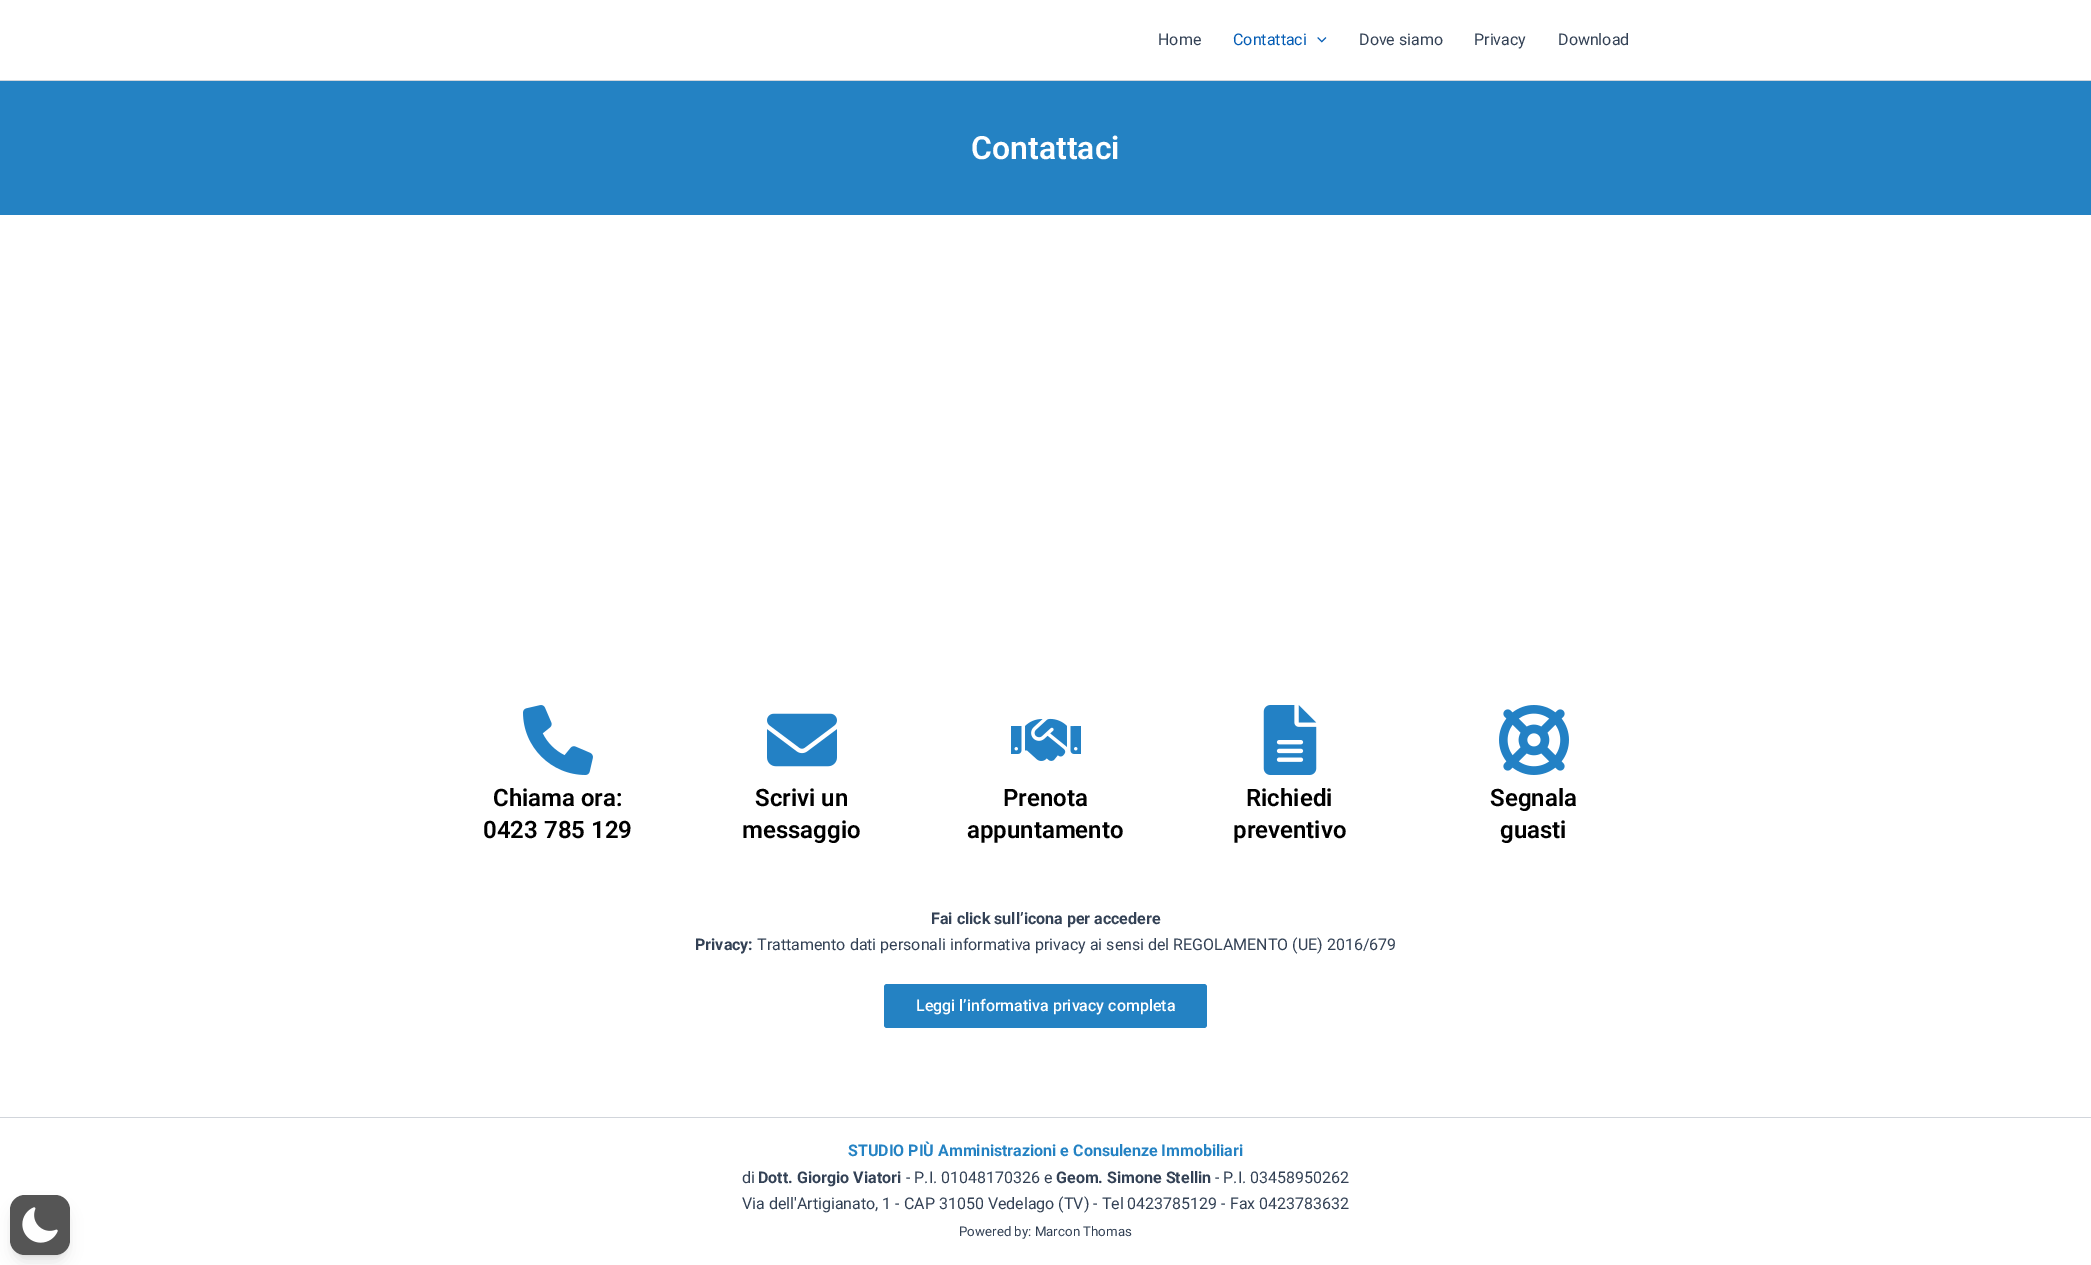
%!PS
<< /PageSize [2091 1265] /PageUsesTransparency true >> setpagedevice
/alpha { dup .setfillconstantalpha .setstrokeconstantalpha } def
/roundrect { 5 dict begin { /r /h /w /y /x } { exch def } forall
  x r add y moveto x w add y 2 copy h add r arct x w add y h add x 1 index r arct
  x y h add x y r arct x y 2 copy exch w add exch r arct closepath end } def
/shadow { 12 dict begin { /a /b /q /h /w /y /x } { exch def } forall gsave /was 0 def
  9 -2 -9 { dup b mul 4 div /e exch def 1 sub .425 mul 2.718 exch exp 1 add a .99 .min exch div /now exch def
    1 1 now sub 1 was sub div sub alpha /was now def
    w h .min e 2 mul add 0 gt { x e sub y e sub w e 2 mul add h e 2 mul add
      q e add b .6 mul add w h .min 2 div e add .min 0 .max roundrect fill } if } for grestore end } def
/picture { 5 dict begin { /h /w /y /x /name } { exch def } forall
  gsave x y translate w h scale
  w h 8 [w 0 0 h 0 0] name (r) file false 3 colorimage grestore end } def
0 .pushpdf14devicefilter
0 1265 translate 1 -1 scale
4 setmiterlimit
1 setgray
0 0 2091 1265 rectfill
0 setgray
14 1203 52 52 11 3 0.1 shadow
13 1208 54 54 12 7.5 0.1 shadow
0.333 setgray
10 1195 60 60 15 roundrect fill
(img1.rgb) 22 1207 36 36 picture
0.82 0.835 0.859 setrgbcolor
0 80 2091 1 rectfill
/Roboto-Regular [16 0 0 -16 0 0] selectfont
0.2 0.255 0.333 setrgbcolor
1158 45 moveto (Home) show
0.016 0.361 0.706 setrgbcolor
1233 45 moveto (Contattaci) show
(img2.rgb) 1317 37 10 6 picture
0.2 0.255 0.333 setrgbcolor
1359 45 moveto (Dove siamo) show
1474 45 moveto (Privacy) show
1558 45 moveto (Download) show
0.141 0.51 0.765 setrgbcolor
0 81 2091 134 rectfill
/Roboto-SemiBold [32 0 0 -32 0 0] selectfont
1 setgray
971 159 moveto (Contattaci) show
(img3.rgb) 523 705 70 70 picture
/Roboto-SemiBold [24 0 0 -24 0 0] selectfont
0 setgray
493 806 moveto (Chiama ora:) show
483 838 moveto (0423 785 129) show
(img4.rgb) 767 713 70 54 picture
755 806 moveto (Scrivi un) show
742 838 moveto (messaggio) show
(img5.rgb) 1011 718 70 43 picture
1003 806 moveto (Prenota) show
967 838 moveto (appuntamento) show
(img6.rgb) 1263 705 54 70 picture
1246 806 moveto (Richiedi) show
1233 838 moveto (preventivo) show
(img7.rgb) 1499 705 70 70 picture
1490 806 moveto (Segnala) show
1500 838 moveto (guasti) show
/Roboto-Bold [16 0 0 -16 0 0] selectfont
0.2 0.255 0.333 setrgbcolor
931 924 moveto (Fai click sull’icona per accedere) show
695 950 moveto (Privacy:) show
/Roboto-Regular [16 0 0 -16 0 0] selectfont
757 950 moveto (Trattamento dati personali informativa privacy ai sensi del REGOLAMENTO \(UE\) 2016/679) show
0.141 0.51 0.765 setrgbcolor
884 984 323 44 3 roundrect fill
/Roboto-Medium [16 0 0 -16 0 0] selectfont
1 setgray
916 1011 moveto (Leggi l’informativa privacy completa) show
0.82 0.835 0.859 setrgbcolor
0 1117 2091 1 rectfill
/Roboto-Bold [16 0 0 -16 0 0] selectfont
0.141 0.51 0.765 setrgbcolor
848 1156 moveto (STUDIO PIÙ Amministrazioni e Consulenze Immobiliari) show
/Roboto-Regular [16 0 0 -16 0 0] selectfont
0.2 0.255 0.333 setrgbcolor
742 1183 moveto (di) show
/Roboto-Bold [16 0 0 -16 0 0] selectfont
758 1183 moveto (Dott. Giorgio Viatori) show
/Roboto-Regular [16 0 0 -16 0 0] selectfont
906 1183 moveto (- P.I. 01048170326 e) show
/Roboto-Bold [16 0 0 -16 0 0] selectfont
1056 1183 moveto (Geom. Simone Stellin) show
/Roboto-Regular [16 0 0 -16 0 0] selectfont
1215 1183 moveto (- P.I. 03458950262) show
742 1209 moveto (Via dell'Artigianato, 1 - CAP 31050 Vedelago \(TV\) - Tel 0423785129 - Fax 0423783632) show
/Roboto-Regular [13.3 0 0 -13.3 0 0] selectfont
959 1236 moveto (Powered by: Marcon Thomas) show
.poppdf14devicefilter showpage
